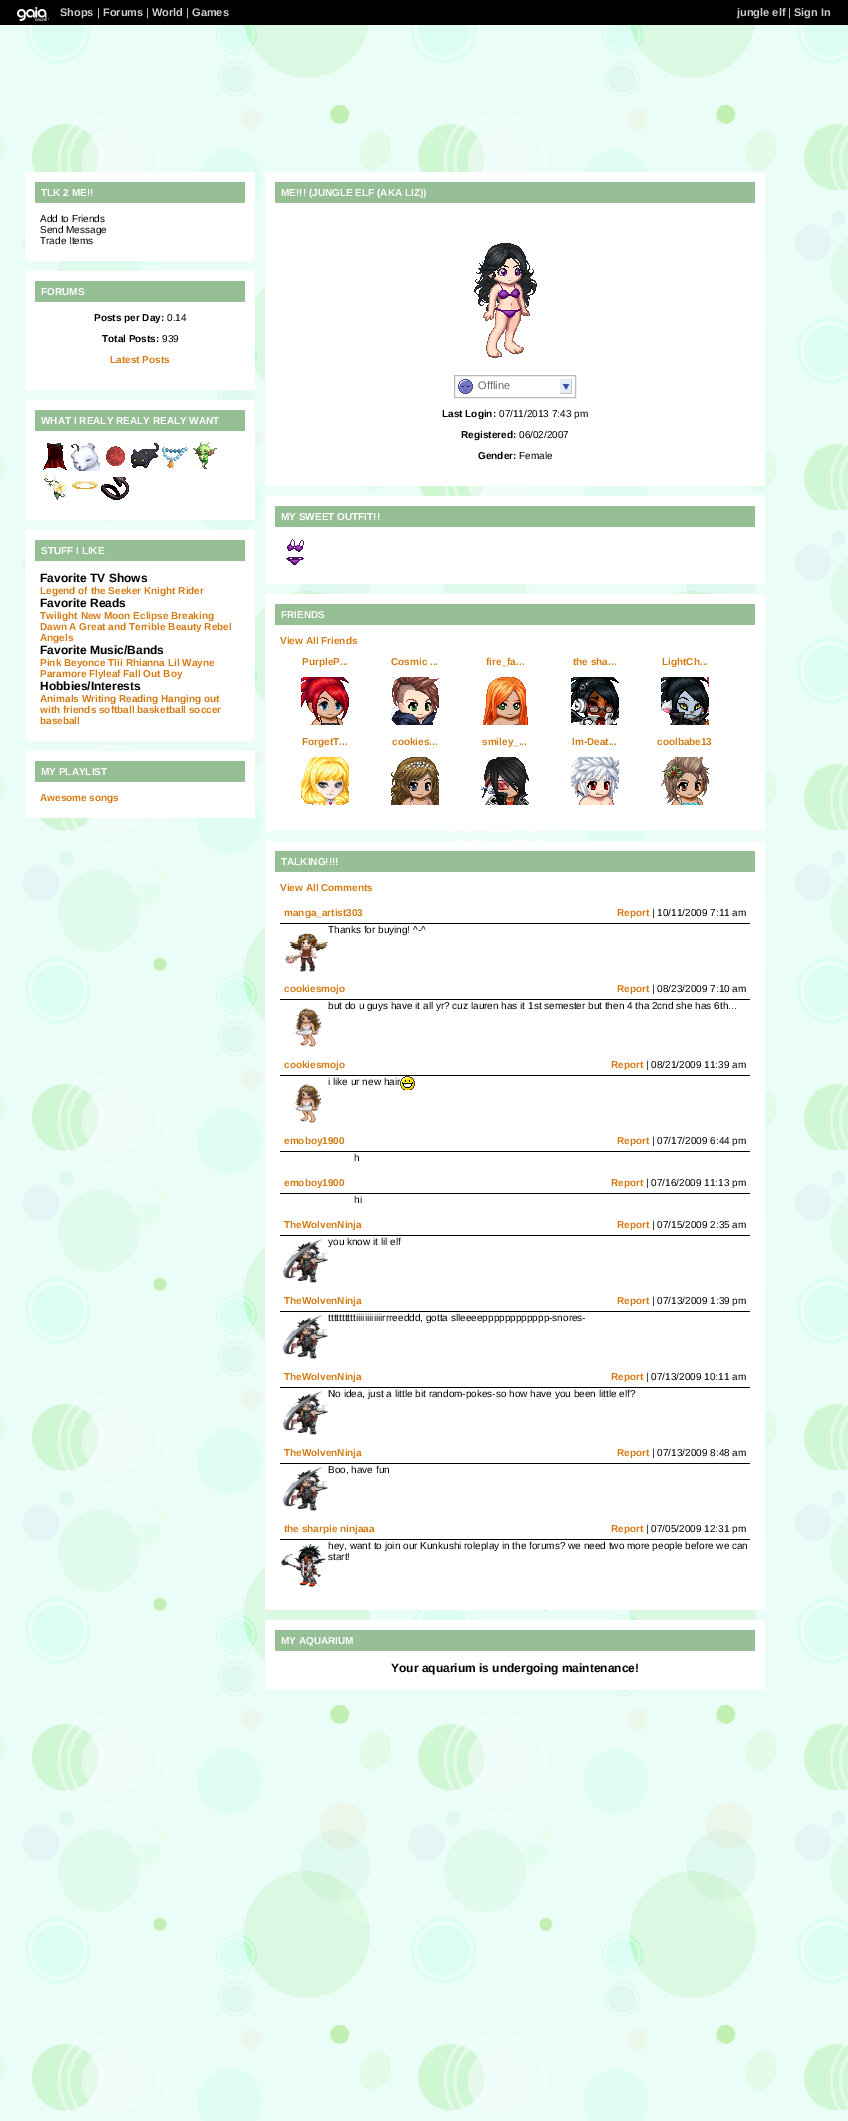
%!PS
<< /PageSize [848 2121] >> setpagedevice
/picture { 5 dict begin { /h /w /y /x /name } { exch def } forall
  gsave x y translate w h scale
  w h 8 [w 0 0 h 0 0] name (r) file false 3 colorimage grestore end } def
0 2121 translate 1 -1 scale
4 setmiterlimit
1 setgray
0 0 848 2121 rectfill
(img1.rgb) 0 25 848 2096 picture
0 setgray
0 0 848 25 rectfill
(img2.rgb) 17 7 32 14 picture
/LiberationSans-Bold [11 0 0 -11 0 0] selectfont
0.8 setgray
60 16 moveto (Shops) show
/LiberationSans-Regular [11 0 0 -11 0 0] selectfont
1 setgray
97 16 moveto (|) show
/LiberationSans-Bold [11 0 0 -11 0 0] selectfont
0.8 setgray
103 16 moveto (Forums) show
/LiberationSans-Regular [11 0 0 -11 0 0] selectfont
1 setgray
146 16 moveto (|) show
/LiberationSans-Bold [11 0 0 -11 0 0] selectfont
0.8 setgray
152 16 moveto (World) show
/LiberationSans-Regular [11 0 0 -11 0 0] selectfont
1 setgray
186 16 moveto (|) show
/LiberationSans-Bold [11 0 0 -11 0 0] selectfont
0.8 setgray
192 16 moveto (Games) show
737 16 moveto (jungle elf) show
/LiberationSans-Regular [11 0 0 -11 0 0] selectfont
1 setgray
788 16 moveto (|) show
/LiberationSans-Bold [11 0 0 -11 0 0] selectfont
0.8 setgray
794 16 moveto (Sign In) show
1 setgray
25 172 230 89 rectfill
0.592 0.749 0.584 setrgbcolor
35 182 210 21 rectfill
/LiberationSans-Bold [10 0 0 -10 0 0] selectfont
1 setgray
41 196 moveto (TLK 2 ME!!) show
/LiberationSans-Regular [10 0 0 -10 0 0] selectfont
0 setgray
40 222 moveto (Add to Friends) show
40 233 moveto (Send Message) show
40 244 moveto (Trade Items) show
1 setgray
25 271 230 119 rectfill
0.592 0.749 0.584 setrgbcolor
35 281 210 21 rectfill
/LiberationSans-Bold [10 0 0 -10 0 0] selectfont
1 setgray
41 295 moveto (FORUMS) show
0 setgray
94 321 moveto (Posts per Day:) show
/LiberationSans-Regular [10 0 0 -10 0 0] selectfont
167 321 moveto (0.14) show
/LiberationSans-Bold [10 0 0 -10 0 0] selectfont
102 342 moveto (Total Posts:) show
/LiberationSans-Regular [10 0 0 -10 0 0] selectfont
162 342 moveto (939) show
/LiberationSans-Bold [10 0 0 -10 0 0] selectfont
0.827 0.482 0.078 setrgbcolor
110 363 moveto (Latest Posts) show
1 setgray
25 400 230 120 rectfill
0.592 0.749 0.584 setrgbcolor
35 410 210 21 rectfill
1 setgray
41 424 moveto (WHAT I REALY REALY REALY WANT) show
(img3.rgb) 43 443 24 27 picture
(img4.rgb) 71 443 29 28 picture
(img5.rgb) 106 446 19 20 picture
(img6.rgb) 131 443 28 25 picture
(img7.rgb) 162 447 26 21 picture
(img8.rgb) 193 442 24 27 picture
(img9.rgb) 44 475 22 25 picture
(img10.rgb) 72 481 26 8 picture
(img11.rgb) 101 477 28 23 picture
25 530 230 211 rectfill
0.592 0.749 0.584 setrgbcolor
35 540 210 21 rectfill
1 setgray
41 554 moveto (STUFF I LIKE) show
/LiberationSans-Bold [12 0 0 -12 0 0] selectfont
0 setgray
40 582 moveto (Favorite TV Shows) show
/LiberationSans-Bold [10 0 0 -10 0 0] selectfont
0.827 0.482 0.078 setrgbcolor
40 594 moveto (Legend of the Seeker Knight Rider) show
/LiberationSans-Bold [12 0 0 -12 0 0] selectfont
0 setgray
40 607 moveto (Favorite Reads) show
/LiberationSans-Bold [10 0 0 -10 0 0] selectfont
0.827 0.482 0.078 setrgbcolor
40 619 moveto (Twilight New Moon Eclipse Breaking) show
40 630 moveto (Dawn A Great and Terrible Beauty Rebel) show
40 641 moveto (Angels) show
/LiberationSans-Bold [12 0 0 -12 0 0] selectfont
0 setgray
40 654 moveto (Favorite Music/Bands) show
/LiberationSans-Bold [10 0 0 -10 0 0] selectfont
0.827 0.482 0.078 setrgbcolor
40 666 moveto (Pink Beyonce TIii Rhianna Lil Wayne) show
40 677 moveto (Paramore Flyleaf Fall Out Boy) show
/LiberationSans-Bold [12 0 0 -12 0 0] selectfont
0 setgray
40 690 moveto (Hobbies/Interests) show
/LiberationSans-Bold [10 0 0 -10 0 0] selectfont
0.827 0.482 0.078 setrgbcolor
40 702 moveto (Animals Writing Reading Hanging out) show
40 713 moveto (with friends softball basketball soccer) show
40 724 moveto (baseball) show
1 setgray
25 751 230 67 rectfill
0.592 0.749 0.584 setrgbcolor
35 761 210 21 rectfill
1 setgray
41 775 moveto (MY PLAYLIST) show
0.827 0.482 0.078 setrgbcolor
40 801 moveto (Awesome songs) show
1 setgray
265 172 500 314 rectfill
0.592 0.749 0.584 setrgbcolor
275 182 480 21 rectfill
1 setgray
281 196 moveto (ME!!! \(JUNGLE ELF \(AKA LIZ\)\)) show
(img12.rgb) 474 243 63 115 picture
0.733 setgray
454.5 375.5 121 22 rectstroke
(img13.rgb) 560 379 12 15 picture
(img14.rgb) 458 379 15 15 picture
/LiberationSans-Regular [11 0 0 -11 0 0] selectfont
0.4 setgray
478 389 moveto (Offline) show
/LiberationSans-Bold [10 0 0 -10 0 0] selectfont
0 setgray
442 417 moveto (Last Login:) show
/LiberationSans-Regular [10 0 0 -10 0 0] selectfont
499 417 moveto (07/11/2013 7:43 pm) show
/LiberationSans-Bold [10 0 0 -10 0 0] selectfont
461 438 moveto (Registered:) show
/LiberationSans-Regular [10 0 0 -10 0 0] selectfont
519 438 moveto (06/02/2007) show
/LiberationSans-Bold [10 0 0 -10 0 0] selectfont
478 459 moveto (Gender:) show
/LiberationSans-Regular [10 0 0 -10 0 0] selectfont
519 459 moveto (Female) show
1 setgray
265 496 500 88 rectfill
0.592 0.749 0.584 setrgbcolor
275 506 480 21 rectfill
/LiberationSans-Bold [10 0 0 -10 0 0] selectfont
1 setgray
281 520 moveto (MY SWEET OUTFIT!!) show
(img15.rgb) 286 539 18 26 picture
265 594 500 237 rectfill
0.592 0.749 0.584 setrgbcolor
275 604 480 21 rectfill
1 setgray
281 618 moveto (FRIENDS) show
0.827 0.482 0.078 setrgbcolor
280 644 moveto (View All Friends) show
302 665 moveto (PurpleP...) show
(img16.rgb) 301 677 48 48 picture
391 665 moveto (Cosmic ...) show
(img17.rgb) 391 677 48 48 picture
486 665 moveto (fire_fa...) show
(img18.rgb) 483 677 45 48 picture
573 665 moveto (the sha...) show
(img19.rgb) 571 677 48 48 picture
662 665 moveto (LightCh...) show
(img20.rgb) 661 677 48 48 picture
302 745 moveto (ForgetT...) show
(img21.rgb) 301 757 48 48 picture
392 745 moveto (cookies...) show
(img22.rgb) 391 757 48 48 picture
482 745 moveto (smiley_...) show
(img23.rgb) 481 757 48 48 picture
572 745 moveto (Im-Deat...) show
(img24.rgb) 571 757 48 48 picture
657 745 moveto (coolbabe13) show
(img25.rgb) 661 757 48 48 picture
1 setgray
265 841 500 769 rectfill
0.592 0.749 0.584 setrgbcolor
275 851 480 21 rectfill
1 setgray
281 865 moveto (TALKING!!!!) show
0.827 0.482 0.078 setrgbcolor
280 891 moveto (View All Comments) show
0 setgray
280 923 470 1 rectfill
0.827 0.482 0.078 setrgbcolor
284 916 moveto (manga_artist303) show
617 916 moveto (Report) show
/LiberationSans-Regular [10 0 0 -10 0 0] selectfont
0 setgray
652 916 moveto (| 10/11/2009 7:11 am) show
328 933 moveto (Thanks for buying! ^-^) show
(img26.rgb) 284 933 44 39 picture
280 999 470 1 rectfill
/LiberationSans-Bold [10 0 0 -10 0 0] selectfont
0.827 0.482 0.078 setrgbcolor
284 992 moveto (cookiesmojo) show
617 992 moveto (Report) show
/LiberationSans-Regular [10 0 0 -10 0 0] selectfont
0 setgray
652 992 moveto (| 08/23/2009 7:10 am) show
328 1009 moveto (but do u guys have it all yr? cuz lauren has it 1st semester but then 4 tha 2cnd she has 6th...) show
(img27.rgb) 295 1008 27 39 picture
280 1075 470 1 rectfill
/LiberationSans-Bold [10 0 0 -10 0 0] selectfont
0.827 0.482 0.078 setrgbcolor
284 1068 moveto (cookiesmojo) show
611 1068 moveto (Report) show
/LiberationSans-Regular [10 0 0 -10 0 0] selectfont
0 setgray
646 1068 moveto (| 08/21/2009 11:39 am) show
328 1085 moveto (i like ur new hair) show
(img28.rgb) 400 1076 15 14 picture
(img27.rgb) 295 1084 27 39 picture
280 1151 470 1 rectfill
/LiberationSans-Bold [10 0 0 -10 0 0] selectfont
0.827 0.482 0.078 setrgbcolor
284 1144 moveto (emoboy1900) show
617 1144 moveto (Report) show
/LiberationSans-Regular [10 0 0 -10 0 0] selectfont
0 setgray
652 1144 moveto (| 07/17/2009 6:44 pm) show
354 1161 moveto (h) show
280 1193 470 1 rectfill
/LiberationSans-Bold [10 0 0 -10 0 0] selectfont
0.827 0.482 0.078 setrgbcolor
284 1186 moveto (emoboy1900) show
611 1186 moveto (Report) show
/LiberationSans-Regular [10 0 0 -10 0 0] selectfont
0 setgray
646 1186 moveto (| 07/16/2009 11:13 pm) show
354 1203 moveto (hi) show
280 1235 470 1 rectfill
/LiberationSans-Bold [10 0 0 -10 0 0] selectfont
0.827 0.482 0.078 setrgbcolor
284 1228 moveto (TheWolvenNinja) show
617 1228 moveto (Report) show
/LiberationSans-Regular [10 0 0 -10 0 0] selectfont
0 setgray
652 1228 moveto (| 07/15/2009 2:35 am) show
(img29.rgb) 283 1238 45 45 picture
328 1245 moveto (you know it lil elf) show
280 1311 470 1 rectfill
/LiberationSans-Bold [10 0 0 -10 0 0] selectfont
0.827 0.482 0.078 setrgbcolor
284 1304 moveto (TheWolvenNinja) show
617 1304 moveto (Report) show
/LiberationSans-Regular [10 0 0 -10 0 0] selectfont
0 setgray
652 1304 moveto (| 07/13/2009 1:39 pm) show
(img29.rgb) 283 1314 45 45 picture
328 1321 moveto (ttttttttttiiiiiiiiiiiirrreeddd, gotta slleeeepppppppppppp-snores-) show
280 1387 470 1 rectfill
/LiberationSans-Bold [10 0 0 -10 0 0] selectfont
0.827 0.482 0.078 setrgbcolor
284 1380 moveto (TheWolvenNinja) show
611 1380 moveto (Report) show
/LiberationSans-Regular [10 0 0 -10 0 0] selectfont
0 setgray
646 1380 moveto (| 07/13/2009 10:11 am) show
(img29.rgb) 283 1390 45 45 picture
328 1397 moveto (No idea, just a little bit random-pokes-so how have you been little elf?) show
280 1463 470 1 rectfill
/LiberationSans-Bold [10 0 0 -10 0 0] selectfont
0.827 0.482 0.078 setrgbcolor
284 1456 moveto (TheWolvenNinja) show
617 1456 moveto (Report) show
/LiberationSans-Regular [10 0 0 -10 0 0] selectfont
0 setgray
652 1456 moveto (| 07/13/2009 8:48 am) show
(img29.rgb) 283 1466 45 45 picture
328 1473 moveto (Boo, have fun) show
280 1539 470 1 rectfill
/LiberationSans-Bold [10 0 0 -10 0 0] selectfont
0.827 0.482 0.078 setrgbcolor
284 1532 moveto (the sharpie ninjaaa) show
611 1532 moveto (Report) show
/LiberationSans-Regular [10 0 0 -10 0 0] selectfont
0 setgray
646 1532 moveto (| 07/05/2009 12:31 pm) show
(img30.rgb) 281 1544 46 43 picture
328 1549 moveto (hey, want to join our Kunkushi roleplay in the forums? we need two more people before we can) show
328 1560 moveto (start!) show
1 setgray
265 1620 500 70 rectfill
0.592 0.749 0.584 setrgbcolor
275 1630 480 21 rectfill
/LiberationSans-Bold [10 0 0 -10 0 0] selectfont
1 setgray
281 1644 moveto (MY AQUARIUM) show
/LiberationSans-Bold [12 0 0 -12 0 0] selectfont
0 setgray
391 1672 moveto (Your aquarium is undergoing maintenance!) show
showpage
